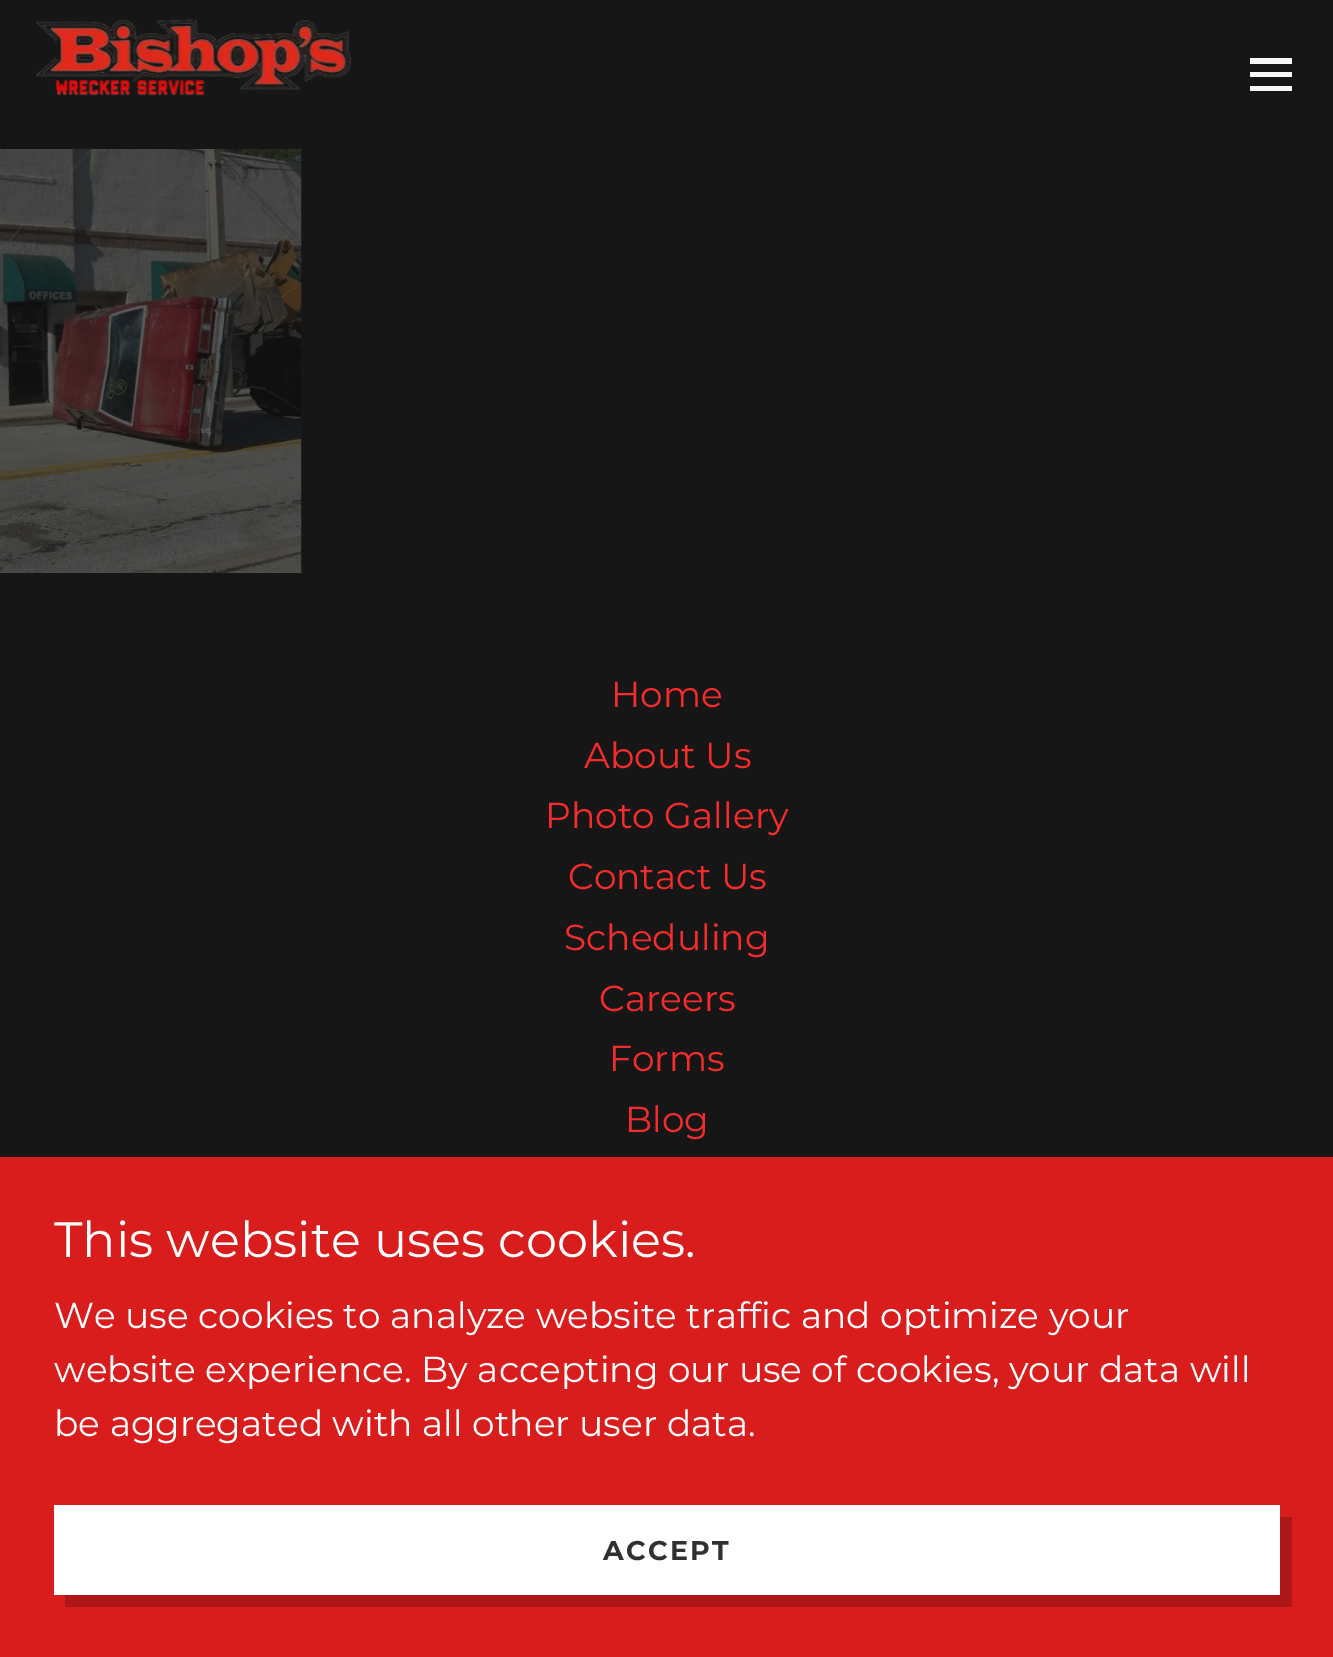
%!PS
<< /PageSize [1333 1657] >> setpagedevice
/picture { 5 dict begin { /h /w /y /x /name } { exch def } forall
  gsave x y translate w h scale
  w h 8 [w 0 0 h 0 0] name (r) file false 3 colorimage grestore end } def
0 1657 translate 1 -1 scale
4 setmiterlimit
0.086 setgray
0 0 1333 1657 rectfill
(img1.rgb) 36 19 316 77 picture
0.969 setgray
1250 58 42 6 rectfill
1250 72 42 5 rectfill
1250 86 42 5 rectfill
(img2.rgb) 0 149 302 424 picture
/Montserrat-Regular [36 0 0 -36 0 0] selectfont
0.961 0.173 0.173 setrgbcolor
611 707 moveto (Home) show
584 768 moveto (About Us) show
545 828 moveto (Photo Gallery) show
568 889 moveto (Contact Us) show
564 950 moveto (Scheduling) show
599 1011 moveto (Careers) show
609 1071 moveto (Forms) show
625 1132 moveto (Blog) show
0.851 0.114 0.114 setrgbcolor
0 1157 1333 500 rectfill
/Montserrat-Regular [49.5 0 0 -49.5 0 0] selectfont
1 setgray
54 1257 moveto (This website uses cookies.) show
/Montserrat-Regular [36 0 0 -36 0 0] selectfont
54 1328 moveto (We use cookies to analyze website traffic and optimize your) show
54 1382 moveto (website experience. By accepting our use of cookies, your data will) show
54 1436 moveto (be aggregated with all other user data.) show
54 1505 1226 90 rectfill
0.682 0.09 0.09 setrgbcolor
newpath 65 1595 moveto 65 1607 lineto 1292 1607 lineto 1292 1517 lineto 1280 1517 lineto 1280 1595 lineto closepath fill
/Montserrat-Bold [27 0 0 -27 0 0] selectfont
0.188 setgray
603 1560 moveto 2.25 0 (ACCEPT) ashow
showpage
